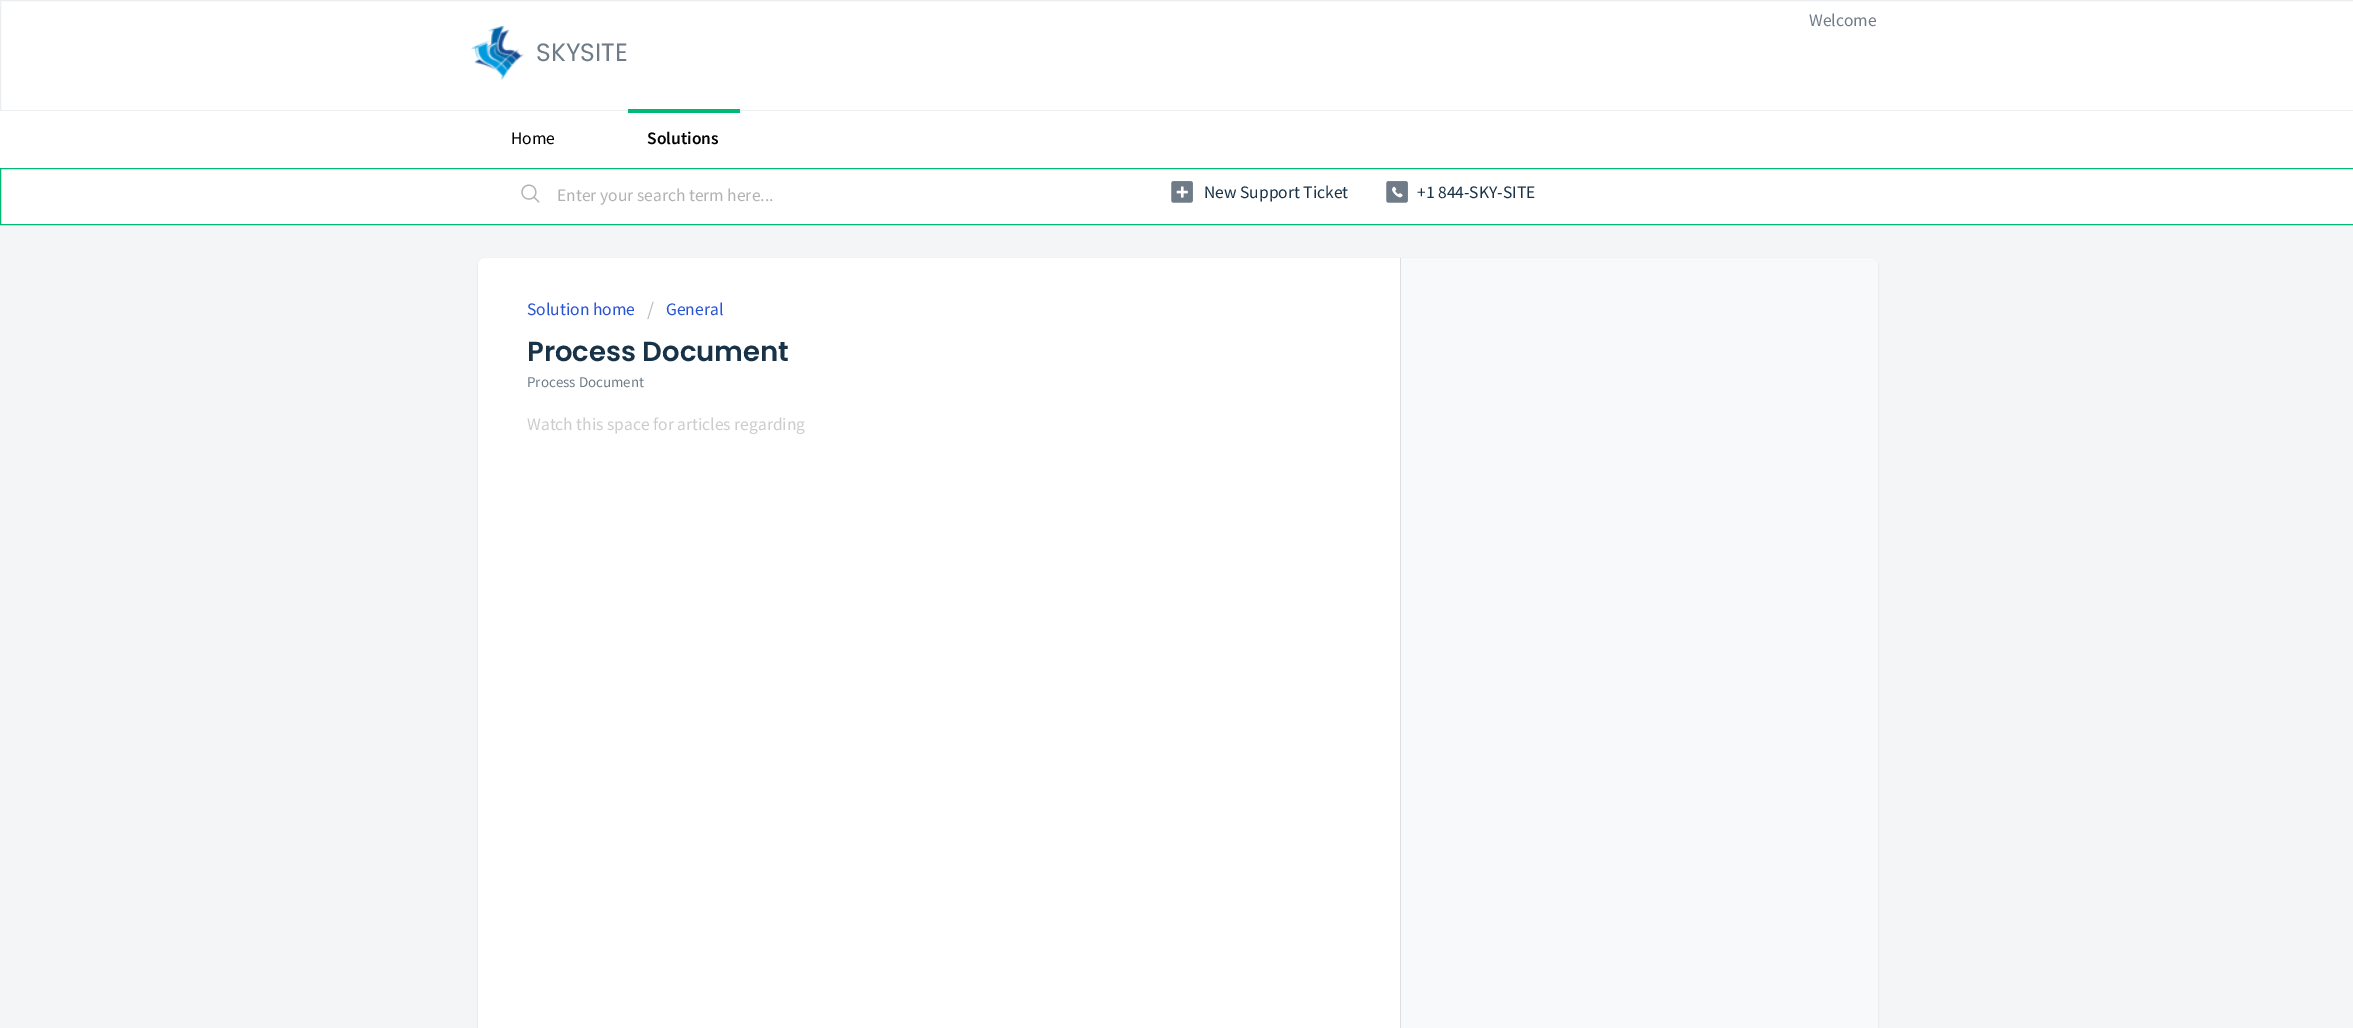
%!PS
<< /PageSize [2353 1028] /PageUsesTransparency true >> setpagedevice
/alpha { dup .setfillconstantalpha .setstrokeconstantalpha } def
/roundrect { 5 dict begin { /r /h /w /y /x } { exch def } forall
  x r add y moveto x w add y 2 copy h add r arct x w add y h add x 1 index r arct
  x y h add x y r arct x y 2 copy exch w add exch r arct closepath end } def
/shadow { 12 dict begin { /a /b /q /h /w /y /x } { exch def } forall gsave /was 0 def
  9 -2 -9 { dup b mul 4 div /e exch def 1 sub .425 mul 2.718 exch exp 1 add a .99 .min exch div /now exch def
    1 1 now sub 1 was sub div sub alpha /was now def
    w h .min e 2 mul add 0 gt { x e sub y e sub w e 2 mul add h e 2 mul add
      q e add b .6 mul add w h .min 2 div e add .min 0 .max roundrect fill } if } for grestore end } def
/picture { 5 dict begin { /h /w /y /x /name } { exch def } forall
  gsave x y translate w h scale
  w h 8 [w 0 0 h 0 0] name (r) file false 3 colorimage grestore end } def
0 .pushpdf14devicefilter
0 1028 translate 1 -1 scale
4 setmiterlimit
0.953 0.961 0.969 setrgbcolor
0 0 2353 1028 rectfill
1 setgray
newpath 0.5 0.5 moveto 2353.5 0.5 lineto 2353.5 110.5 lineto 0.5 110.5 lineto closepath gsave fill grestore
0.922 0.933 0.941 setrgbcolor
stroke
/SourceSansPro-Regular [17.5 0 0 -17.5 0 0] selectfont
0.435 0.486 0.529 setrgbcolor
1809 26 moveto (Welcome) show
(img1.rgb) 471 26 53 54 picture
/Poppins-Regular [25 0 0 -25 0 0] selectfont
536 61 moveto (SKYSITE) show
1 setgray
0 111 2353 57 rectfill
/SourceSansPro-Regular [17.5 0 0 -17.5 0 0] selectfont
0 setgray
511 144 moveto (Home) show
0.008 0.722 0.459 setrgbcolor
628 109 112 4 rectfill
/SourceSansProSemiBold-SemiBold [17.5 0 0 -17.5 0 0] selectfont
0 setgray
647 144 moveto (Solutions) show
1 setgray
newpath 0.5 168.5 moveto 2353.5 168.5 lineto 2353.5 224.5 lineto 0.5 224.5 lineto closepath gsave fill grestore
0.008 0.722 0.459 setrgbcolor
stroke
(img2.rgb) 521 184 19 19 picture
/SourceSansPro-Regular [17.5 0 0 -17.5 0 0] selectfont
0.698 setgray
557 201 moveto (Enter your search term here...) show
(img3.rgb) 1171 181 22 22 picture
0.094 0.196 0.278 setrgbcolor
1204 198 moveto (New Support Ticket) show
(img4.rgb) 1386 181 22 22 picture
1417 198 moveto (+1 844-SKY-SITE) show
0.247 0.247 0.267 setrgbcolor
478 259 1400 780 8 1 0.15 shadow
0.973 0.976 0.98 setrgbcolor
478 258 1400 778 8 roundrect fill
1 setgray
newpath 486 258 moveto 1401 258 lineto 1401 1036 lineto 486 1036 lineto 481.5 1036 478 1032.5 478 1028 curveto 478 266 lineto 478 261.5 481.5 258 486 258 curveto closepath fill
0.855 0.875 0.89 setrgbcolor
1400 258 1 770 rectfill
0.153 0.325 0.843 setrgbcolor
527 315 moveto (Solution home) show
/SourceSansPro-Regular [20 0 0 -20 0 0] selectfont
0.733 setgray
647 316 moveto (/) show
/SourceSansPro-Regular [17.5 0 0 -17.5 0 0] selectfont
0.153 0.325 0.843 setrgbcolor
666 315 moveto (General) show
/Poppins-SemiBold [27.5 0 0 -27.5 0 0] selectfont
0.094 0.196 0.278 setrgbcolor
527 361 moveto (Process Document) show
/SourceSansPro-Regular [15 0 0 -15 0 0] selectfont
0.435 0.486 0.529 setrgbcolor
527 387 moveto (Process Document) show
/SourceSansPro-Regular [17.5 0 0 -17.5 0 0] selectfont
0.8 setgray
527 430 moveto (Watch this space for articles regarding) show
.poppdf14devicefilter showpage
